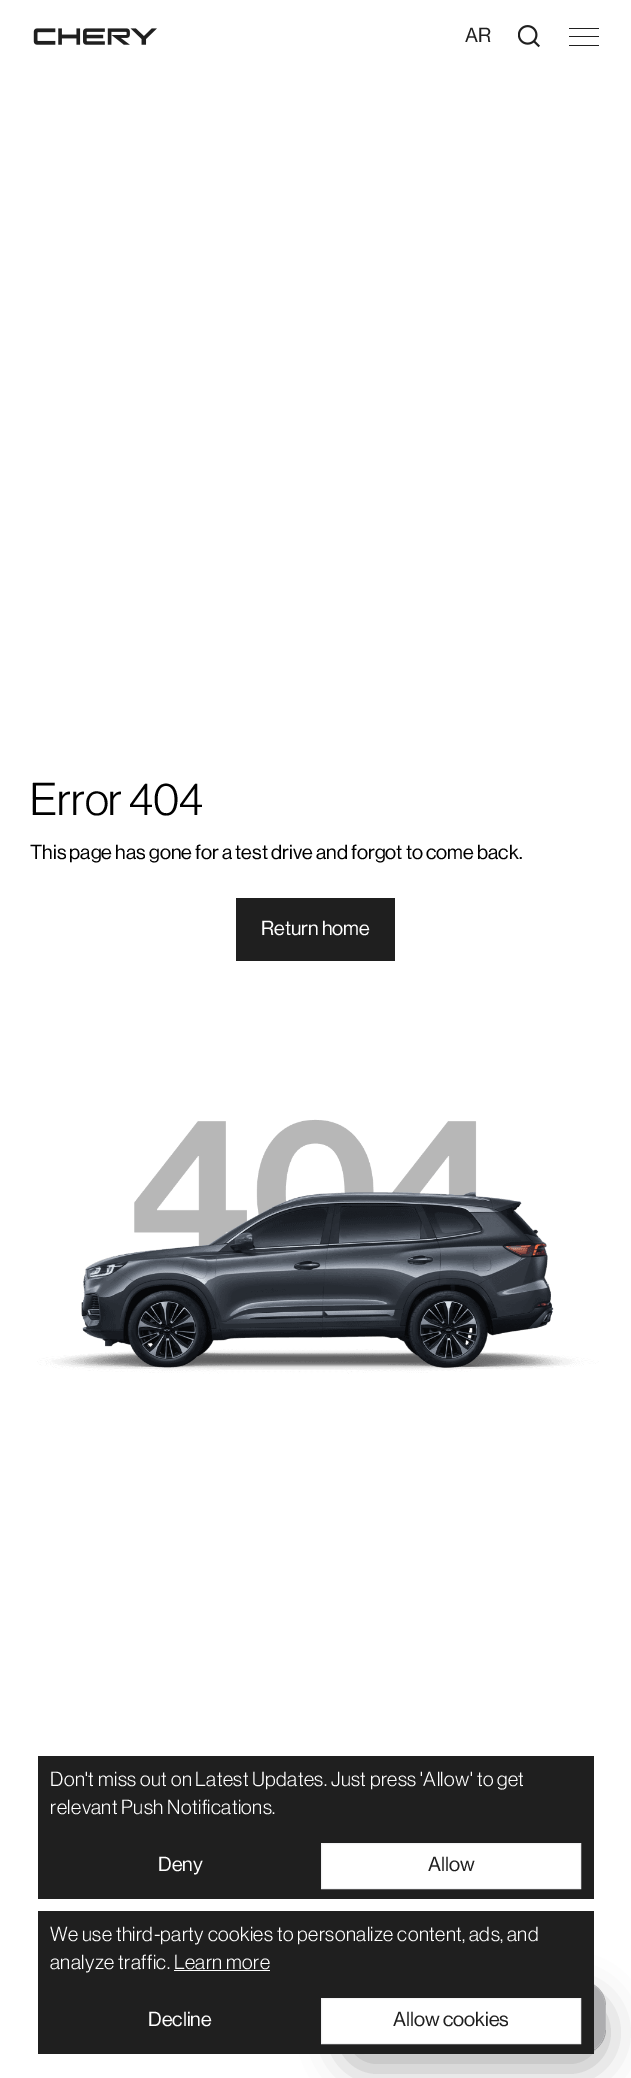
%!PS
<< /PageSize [631 2078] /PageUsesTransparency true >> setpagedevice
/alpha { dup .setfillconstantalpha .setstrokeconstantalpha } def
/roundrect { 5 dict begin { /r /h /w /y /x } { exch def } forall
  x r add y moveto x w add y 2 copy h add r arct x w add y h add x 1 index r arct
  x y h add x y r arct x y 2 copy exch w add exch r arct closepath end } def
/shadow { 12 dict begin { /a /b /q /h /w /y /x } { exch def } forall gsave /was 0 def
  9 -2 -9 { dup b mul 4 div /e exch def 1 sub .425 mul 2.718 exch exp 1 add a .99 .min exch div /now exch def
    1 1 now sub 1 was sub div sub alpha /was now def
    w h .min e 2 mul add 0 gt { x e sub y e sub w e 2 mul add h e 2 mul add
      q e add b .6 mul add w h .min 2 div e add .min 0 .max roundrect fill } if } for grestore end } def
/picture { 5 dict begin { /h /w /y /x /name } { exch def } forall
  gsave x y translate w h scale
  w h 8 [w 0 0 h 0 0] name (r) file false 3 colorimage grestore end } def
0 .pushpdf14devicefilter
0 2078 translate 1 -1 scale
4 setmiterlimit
1 setgray
0 0 631 2078 rectfill
(img1.rgb) 33 28 124 17 picture
/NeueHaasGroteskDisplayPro-Regular [20 0 0 -20 0 0] selectfont
0.122 setgray
465 42 moveto (AR) show
(img2.rgb) 518 25 22 23 picture
569 28 30 1 rectfill
569 36 30 1 rectfill
569 45 30 1 rectfill
/NeueHaasGroteskDisplayPro-Light [45 0 0 -45 0 0] selectfont
0 setgray
30 815 moveto (Error 404) show
/NeueHaasGroteskDisplayPro-Regular [20 0 0 -20 0 0] selectfont
30 859 moveto (This page has gone for a test drive and forgot to come back.) show
0.122 setgray
236 898 159 63 rectfill
1 setgray
261 935 moveto (Return home) show
(img3.rgb) 37 1119 562 255 picture
0.122 setgray
38 1756 556 143 rectfill
/NeueHaasGroteskDisplayPro-Light [20 0 0 -20 0 0] selectfont
1 setgray
50 1786 moveto 0.4 0 (Don't miss out on Latest Updates. Just press 'Allow' to get) ashow
50 1814 moveto 0.4 0 (relevant Push Notifications.) ashow
/NeueHaasGroteskDisplayPro-Regular [20 0 0 -20 0 0] selectfont
158 1871 moveto (Deny) show
newpath 321.5 1843.5 moveto 580.5 1843.5 lineto 580.5 1888.5 lineto 321.5 1888.5 lineto closepath gsave fill grestore
0.949 0.949 0.953 setrgbcolor
stroke
0.122 setgray
428 1871 moveto (Allow) show
gsave
newpath 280 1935 moveto 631 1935 lineto 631 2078 lineto 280 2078 lineto closepath 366 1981 moveto 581 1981 lineto 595 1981 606 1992 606 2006 curveto 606 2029 lineto 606 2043 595 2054 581 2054 curveto 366 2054 lineto 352 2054 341 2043 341 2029 curveto 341 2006 lineto 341 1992 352 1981 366 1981 curveto closepath eoclip newpath
0 setgray
341 1996 265 73 25 20 0.3 shadow
grestore
0.35 alpha
0.078 0.078 0.098 setrgbcolor
341 1981 265 73 25 roundrect fill
0.15 alpha
1 setgray
341.5 1981.5 264 72 24.5 roundrect stroke
1 alpha
0.122 setgray
38 1911 556 143 rectfill
/NeueHaasGroteskDisplayPro-Light [20 0 0 -20 0 0] selectfont
1 setgray
50 1941 moveto 0.4 0 (We use third-party cookies to personalize content, ads, and) ashow
50 1969 moveto 0.4 0 (analyze traffic. Learn more) ashow
174 1970 96 1 rectfill
/NeueHaasGroteskDisplayPro-Regular [20 0 0 -20 0 0] selectfont
148 2026 moveto (Decline) show
newpath 321.5 1998.5 moveto 580.5 1998.5 lineto 580.5 2043.5 lineto 321.5 2043.5 lineto closepath gsave fill grestore
0.949 0.949 0.953 setrgbcolor
stroke
0.122 setgray
393 2026 moveto (Allow cookies) show
.poppdf14devicefilter showpage
